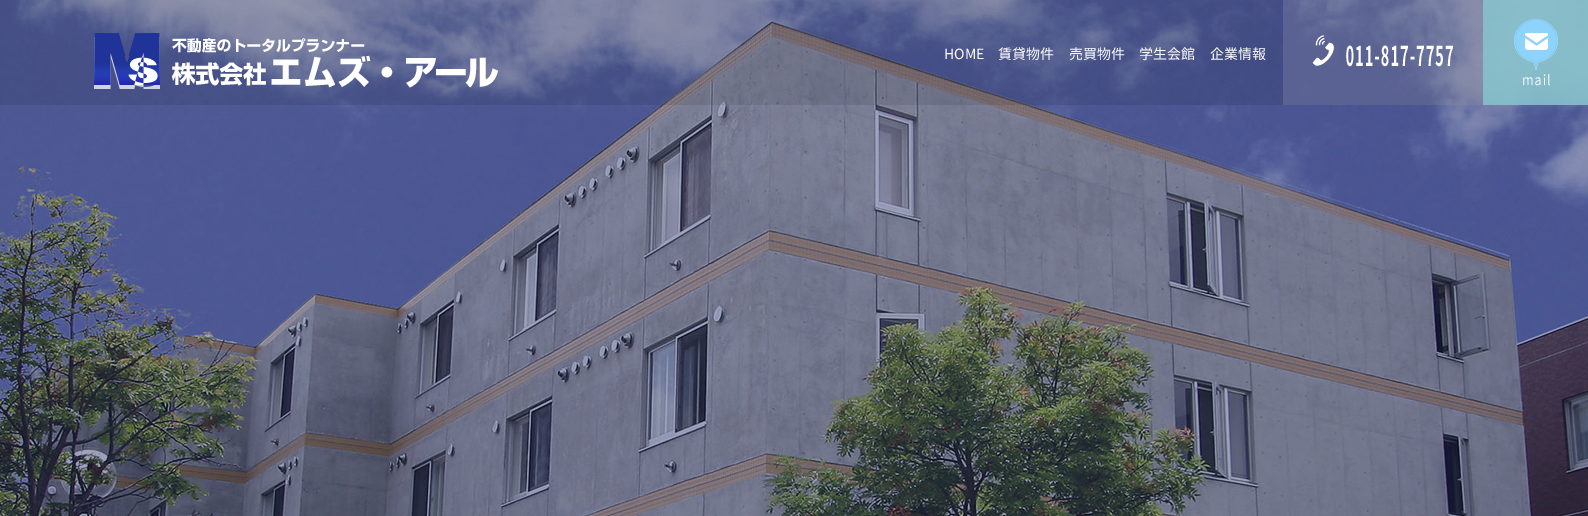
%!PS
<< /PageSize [1588 516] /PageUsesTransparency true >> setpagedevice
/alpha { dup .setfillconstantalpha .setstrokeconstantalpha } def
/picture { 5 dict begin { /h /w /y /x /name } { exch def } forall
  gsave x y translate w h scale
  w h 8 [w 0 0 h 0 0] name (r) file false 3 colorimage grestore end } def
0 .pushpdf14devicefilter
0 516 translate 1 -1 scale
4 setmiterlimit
1 setgray
0 0 1588 516 rectfill
(img1.rgb) 0 0 1588 516 picture
0.09 alpha
0 setgray
0 0 1588 105 rectfill
1 alpha
(img2.rgb) 94 33 405 56 picture
/NotoSansJP-Regular [14 0 0 -14 0 0] selectfont
1 setgray
944 59 moveto (HOME) show
998 59 moveto (賃貸物件) show
1069 59 moveto (売買物件) show
1139 59 moveto (学生会館) show
1210 59 moveto (企業情報) show
0.15 alpha
0.867 setgray
1283 0 200 105 rectfill
1 alpha
(img3.rgb) 1312 35 141 32 picture
0.85 alpha
0.537 0.776 0.812 setrgbcolor
1483 0 105 105 rectfill
1 alpha
(img4.rgb) 1514 19 44 67 picture
.poppdf14devicefilter showpage
